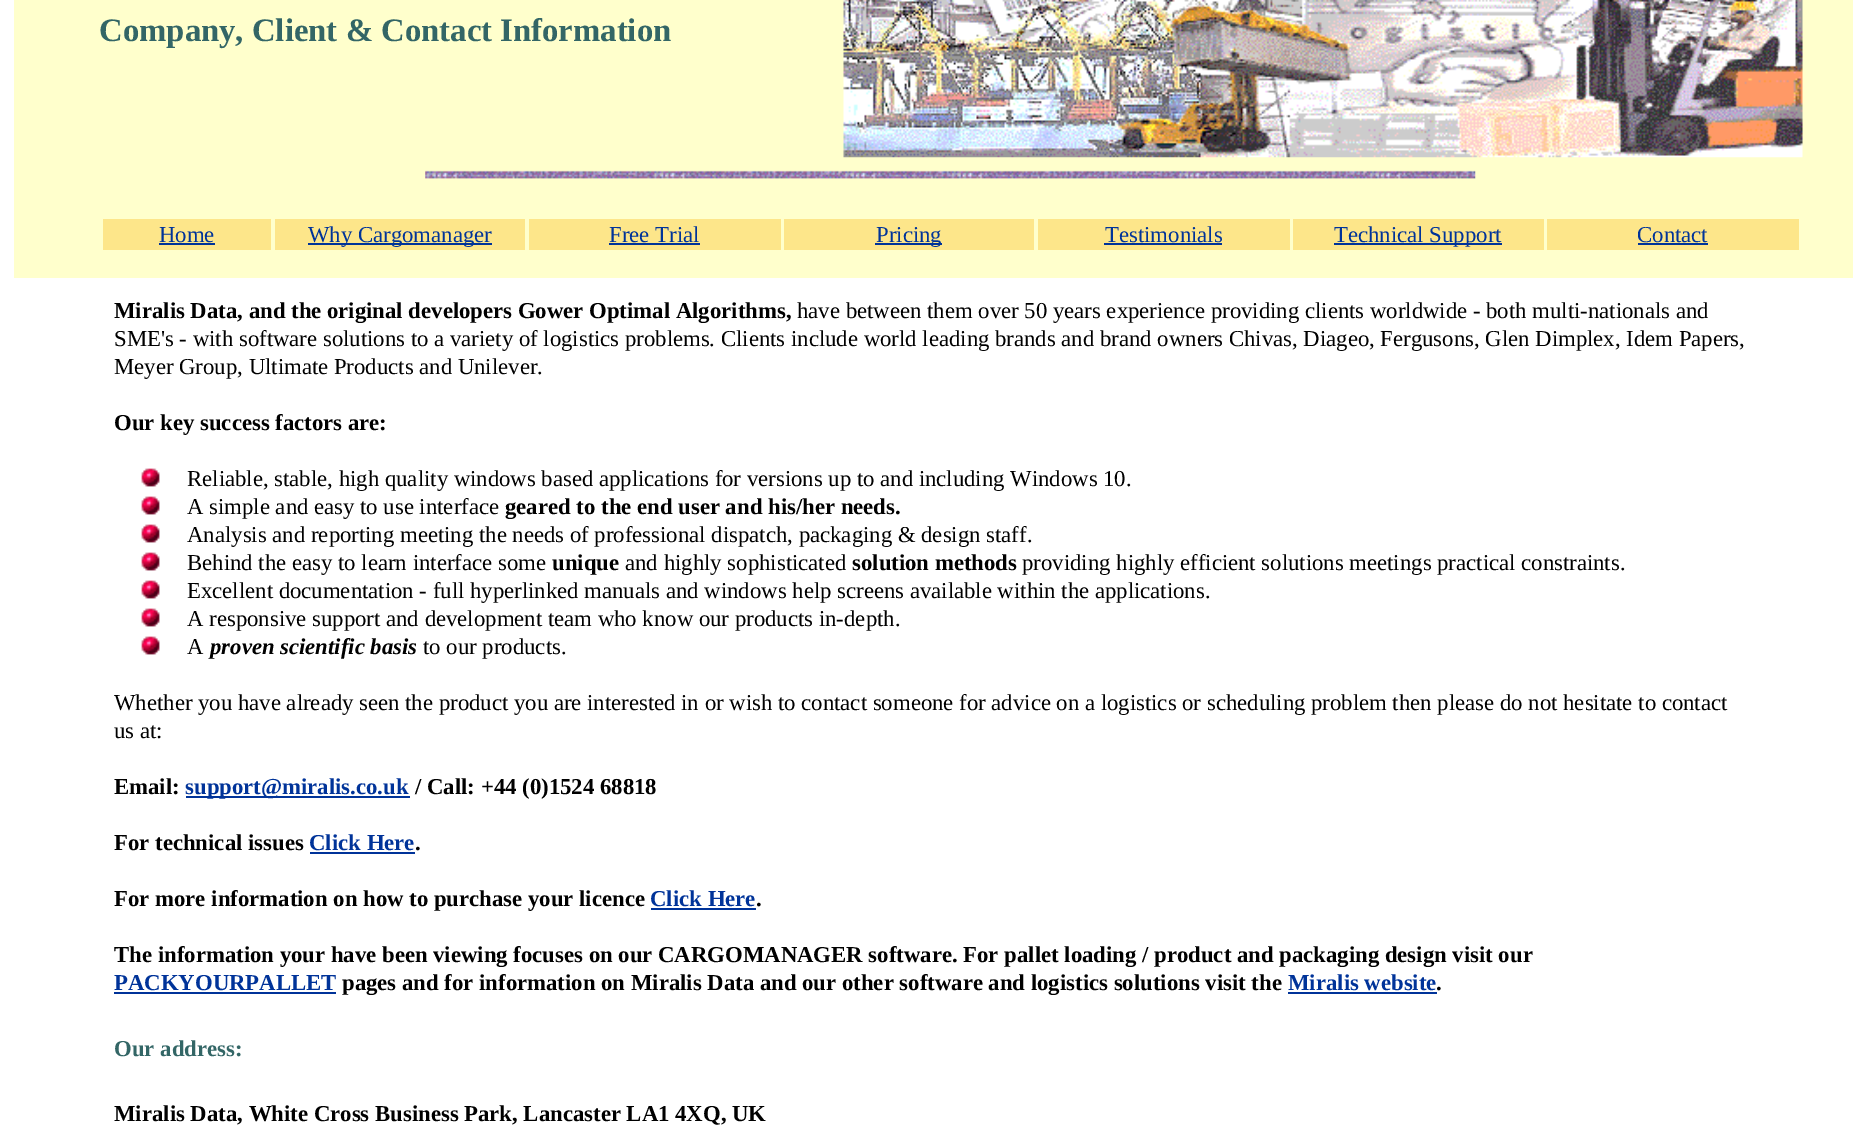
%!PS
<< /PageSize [1866 1145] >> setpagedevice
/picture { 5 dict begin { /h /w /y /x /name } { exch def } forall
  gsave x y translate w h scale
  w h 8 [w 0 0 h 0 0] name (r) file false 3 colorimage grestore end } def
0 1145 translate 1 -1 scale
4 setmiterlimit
1 setgray
0 0 1866 1145 rectfill
1 1 0.8 setrgbcolor
14 0 1839 278 rectfill
/LiberationSerif-Bold [32.75 0 0 -32.75 0 0] selectfont
0.2 0.4 0.4 setrgbcolor
99 41 moveto (Company, Client & Contact Information) show
(img1.rgb) 843 0 960 158 picture
(img2.rgb) 425 170 1051 9 picture
0.992 0.902 0.541 setrgbcolor
103 219 168 31 rectfill
/LiberationSerif-Regular [22.75 0 0 -22.75 0 0] selectfont
0 0.2 0.6 setrgbcolor
159 242 moveto (Home) show
159 243 56 2 rectfill
0.992 0.902 0.541 setrgbcolor
275 219 250 31 rectfill
0 0.2 0.6 setrgbcolor
308 243 184 2 rectfill
308 242 moveto (Why Cargomanager) show
0.992 0.902 0.541 setrgbcolor
529 219 252 31 rectfill
0 0.2 0.6 setrgbcolor
609 242 moveto (Free Trial) show
609 243 91 2 rectfill
0.992 0.902 0.541 setrgbcolor
784 219 250 31 rectfill
0 0.2 0.6 setrgbcolor
875 243 67 2 rectfill
876 242 moveto (Pricing) show
0.992 0.902 0.541 setrgbcolor
1038 219 252 31 rectfill
0 0.2 0.6 setrgbcolor
1105 242 moveto (Testimonials) show
1104 243 118 2 rectfill
0.992 0.902 0.541 setrgbcolor
1293 219 251 31 rectfill
0 0.2 0.6 setrgbcolor
1334 243 168 2 rectfill
1334 242 moveto (Technical Support) show
0.992 0.902 0.541 setrgbcolor
1547 219 252 31 rectfill
0 0.2 0.6 setrgbcolor
1637 242 moveto (Contact) show
1638 243 70 2 rectfill
/LiberationSerif-Bold [22.75 0 0 -22.75 0 0] selectfont
0 setgray
114 318 moveto (Miralis Data, and the original developers Gower Optimal Algorithms,) show
/LiberationSerif-Regular [22.75 0 0 -22.75 0 0] selectfont
797 318 moveto (have between them over 50 years experience providing clients worldwide - both multi-nationals and) show
114 346 moveto (SME's - with software solutions to a variety of logistics problems. Clients include world leading brands and brand owners Chivas, Diageo, Fergusons, Glen Dimplex, Idem Papers,) show
114 374 moveto (Meyer Group, Ultimate Products and Unilever.) show
/LiberationSerif-Bold [22.75 0 0 -22.75 0 0] selectfont
114 430 moveto (Our key success factors are:) show
(img3.rgb) 141 468 19 19 picture
/LiberationSerif-Regular [22.75 0 0 -22.75 0 0] selectfont
187 486 moveto (Reliable, stable, high quality windows based applications for versions up to and including Windows 10.) show
(img3.rgb) 141 496 19 19 picture
187 514 moveto (A simple and easy to use interface) show
/LiberationSerif-Bold [22.75 0 0 -22.75 0 0] selectfont
505 514 moveto (geared to the end user and his/her needs.) show
(img3.rgb) 141 524 19 19 picture
/LiberationSerif-Regular [22.75 0 0 -22.75 0 0] selectfont
187 542 moveto (Analysis and reporting meeting the needs of professional dispatch, packaging & design staff.) show
(img3.rgb) 141 552 19 19 picture
187 570 moveto (Behind the easy to learn interface some) show
/LiberationSerif-Bold [22.75 0 0 -22.75 0 0] selectfont
552 570 moveto (unique) show
/LiberationSerif-Regular [22.75 0 0 -22.75 0 0] selectfont
625 570 moveto (and highly sophisticated) show
/LiberationSerif-Bold [22.75 0 0 -22.75 0 0] selectfont
852 570 moveto (solution methods) show
/LiberationSerif-Regular [22.75 0 0 -22.75 0 0] selectfont
1022 570 moveto (providing highly efficient solutions meetings practical constraints.) show
(img3.rgb) 141 580 19 19 picture
187 598 moveto (Excellent documentation - full hyperlinked manuals and windows help screens available within the applications.) show
(img3.rgb) 141 608 19 19 picture
187 626 moveto (A responsive support and development team who know our products in-depth.) show
(img3.rgb) 141 636 19 19 picture
187 654 moveto (A) show
/LiberationSerif-BoldItalic [22.75 0 0 -22.75 0 0] selectfont
210 654 moveto (proven scientific basis) show
/LiberationSerif-Regular [22.75 0 0 -22.75 0 0] selectfont
423 654 moveto (to our products.) show
114 710 moveto (Whether you have already seen the product you are interested in or wish to contact someone for advice on a logistics or scheduling problem then please do not hesitate to contact) show
114 738 moveto (us at:) show
/LiberationSerif-Bold [22.75 0 0 -22.75 0 0] selectfont
114 794 moveto (Email:) show
0 0.2 0.6 setrgbcolor
186 796 224 2 rectfill
185 794 moveto (support@miralis.co.uk) show
0 setgray
415 794 moveto (/ Call: +44 \(0\)1524 68818) show
114 850 moveto (For technical issues) show
0 0.2 0.6 setrgbcolor
309 850 moveto (Click Here) show
0 setgray
415 850 moveto (.) show
0 0.2 0.6 setrgbcolor
310 852 105 2 rectfill
0 setgray
114 906 moveto (For more information on how to purchase your licence) show
0 0.2 0.6 setrgbcolor
650 906 moveto (Click Here) show
0 setgray
756 906 moveto (.) show
0 0.2 0.6 setrgbcolor
651 908 105 2 rectfill
0 setgray
114 962 moveto (The information your have been viewing focuses on our CARGOMANAGER software. For pallet loading / product and packaging design visit our) show
0 0.2 0.6 setrgbcolor
114 990 moveto (PACKYOURPALLET) show
114 992 222 2 rectfill
0 setgray
342 990 moveto (pages and for information on Miralis Data and our other software and logistics solutions visit the) show
0 0.2 0.6 setrgbcolor
1288 990 moveto (Miralis website) show
0 setgray
1436 990 moveto (.) show
0 0.2 0.6 setrgbcolor
1288 992 149 2 rectfill
0.2 0.4 0.4 setrgbcolor
114 1056 moveto (Our address:) show
0 setgray
114 1121 moveto (Miralis Data, White Cross Business Park, Lancaster LA1 4XQ, UK) show
showpage
